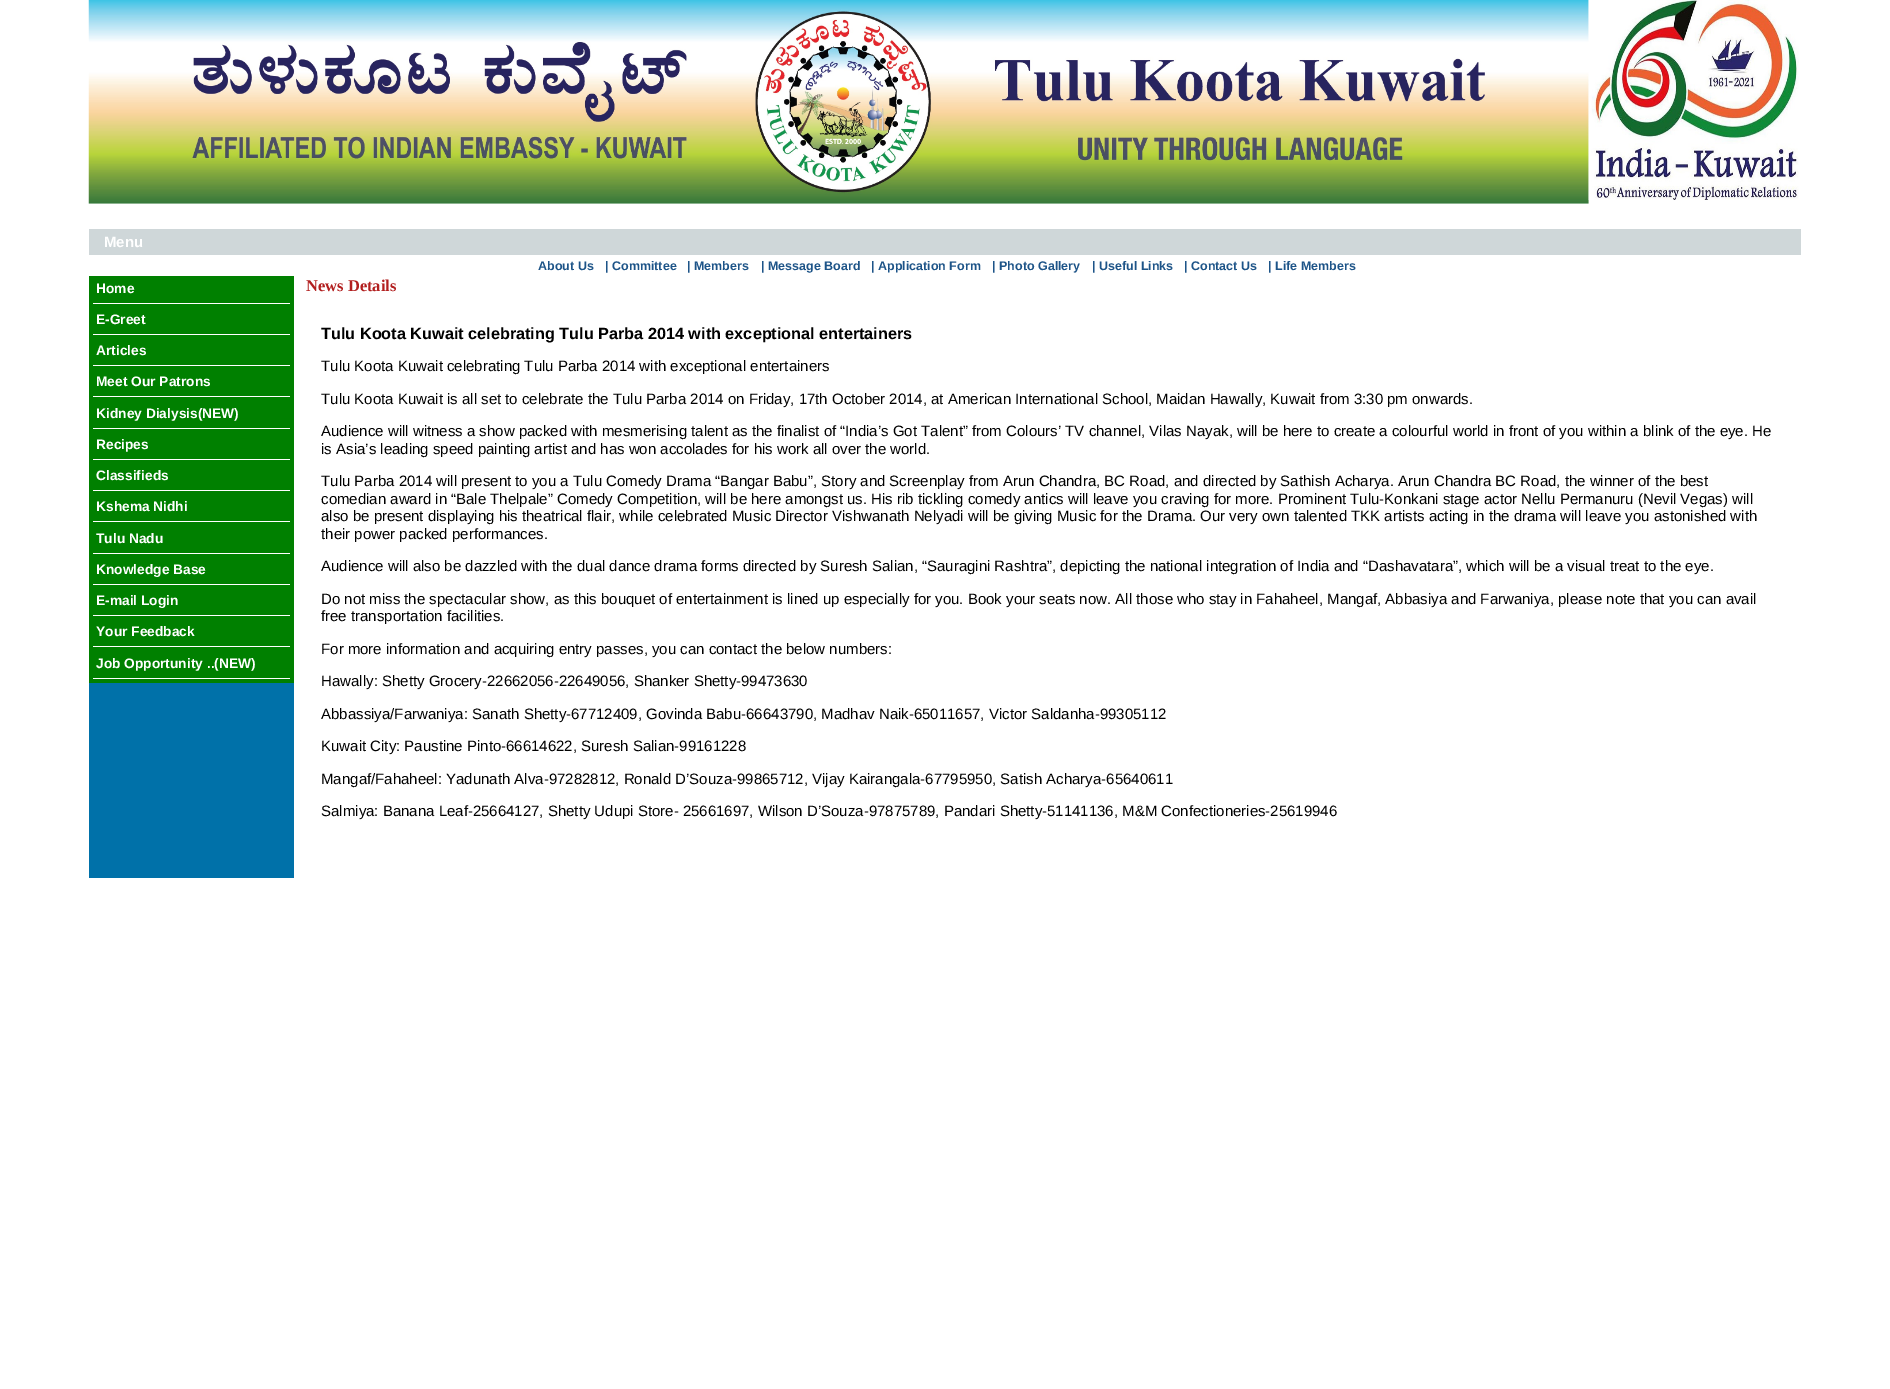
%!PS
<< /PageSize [1890 1389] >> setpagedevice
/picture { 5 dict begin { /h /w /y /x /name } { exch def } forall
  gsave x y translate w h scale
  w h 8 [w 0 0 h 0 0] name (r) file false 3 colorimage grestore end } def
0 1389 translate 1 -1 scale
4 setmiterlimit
1 setgray
0 0 1890 1389 rectfill
(img1.rgb) 88 0 1501 204 picture
(img2.rgb) 1588 0 211 200 picture
0.812 0.843 0.851 setrgbcolor
89 229 1712 26 rectfill
/LiberationSans-Bold [15 0 0 -15 0 0] selectfont
1 setgray
104 247 moveto (Menu) show
/LiberationSans-Bold [12.5 0 0 -12.5 0 0] selectfont
0.114 0.329 0.533 setrgbcolor
538 270 moveto (About Us) show
605 270 moveto (| Committee) show
687 270 moveto (| Members) show
761 270 moveto (| Message Board) show
871 270 moveto (| Application Form) show
992 270 moveto (| Photo Gallery) show
1092 270 moveto (| Useful Links) show
1184 270 moveto (| Contact Us) show
1268 270 moveto (| Life Members) show
0 0.443 0.663 setrgbcolor
89 683 205 195 rectfill
0 0.502 0 setrgbcolor
89 276 205 407 rectfill
/LiberationSans-Bold [13.75 0 0 -13.75 0 0] selectfont
1 setgray
96 293 moveto (Home) show
93 303 197 1 rectfill
96 324 moveto (E-Greet) show
93 334 197 1 rectfill
96 355 moveto (Articles) show
93 365 197 1 rectfill
96 386 moveto (Meet Our Patrons) show
93 396 197 1 rectfill
96 418 moveto (Kidney Dialysis\(NEW\)) show
93 428 197 1 rectfill
96 449 moveto (Recipes) show
93 459 197 1 rectfill
96 480 moveto (Classifieds) show
93 490 197 1 rectfill
96 511 moveto (Kshema Nidhi) show
93 521 197 1 rectfill
96 543 moveto (Tulu Nadu) show
93 553 197 1 rectfill
96 574 moveto (Knowledge Base) show
93 584 197 1 rectfill
96 605 moveto (E-mail Login) show
93 615 197 1 rectfill
96 636 moveto (Your Feedback) show
93 646 197 1 rectfill
96 668 moveto (Job Opportunity ..\(NEW\)) show
93 678 197 1 rectfill
/LiberationSerif-Bold [16.5 0 0 -16.5 0 0] selectfont
0.698 0.122 0.122 setrgbcolor
306 291 moveto (News Details) show
/LiberationSans-Bold [16.25 0 0 -16.25 0 0] selectfont
0 setgray
321 339 moveto (Tulu Koota Kuwait celebrating Tulu Parba 2014 with exceptional entertainers) show
/LiberationSans-Regular [15 0 0 -15 0 0] selectfont
321 371 moveto (Tulu Koota Kuwait celebrating Tulu Parba 2014 with exceptional entertainers) show
321 404 moveto (Tulu Koota Kuwait is all set to celebrate the Tulu Parba 2014 on Friday, 17th October 2014, at American International School, Maidan Hawally, Kuwait from 3:30 pm onwards.) show
321 436 moveto (Audience will witness a show packed with mesmerising talent as the finalist of “India’s Got Talent” from Colours’ TV channel, Vilas Nayak, will be here to create a colourful world in front of you within a blink of the eye. He) show
321 454 moveto (is Asia’s leading speed painting artist and has won accolades for his work all over the world.) show
321 486 moveto (Tulu Parba 2014 will present to you a Tulu Comedy Drama “Bangar Babu”, Story and Screenplay from Arun Chandra, BC Road, and directed by Sathish Acharya. Arun Chandra BC Road, the winner of the best) show
321 504 moveto (comedian award in “Bale Thelpale” Comedy Competition, will be here amongst us. His rib tickling comedy antics will leave you craving for more. Prominent Tulu-Konkani stage actor Nellu Permanuru \(Nevil Vegas\) will) show
321 521 moveto (also be present displaying his theatrical flair, while celebrated Music Director Vishwanath Nelyadi will be giving Music for the Drama. Our very own talented TKK artists acting in the drama will leave you astonished with) show
321 539 moveto (their power packed performances.) show
321 571 moveto (Audience will also be dazzled with the dual dance drama forms directed by Suresh Salian, “Sauragini Rashtra”, depicting the national integration of India and “Dashavatara”, which will be a visual treat to the eye.) show
321 604 moveto (Do not miss the spectacular show, as this bouquet of entertainment is lined up especially for you. Book your seats now. All those who stay in Fahaheel, Mangaf, Abbasiya and Farwaniya, please note that you can avail) show
321 621 moveto (free transportation facilities.) show
321 654 moveto (For more information and acquiring entry passes, you can contact the below numbers:) show
321 686 moveto (Hawally: Shetty Grocery-22662056-22649056, Shanker Shetty-99473630) show
321 719 moveto (Abbassiya/Farwaniya: Sanath Shetty-67712409, Govinda Babu-66643790, Madhav Naik-65011657, Victor Saldanha-99305112) show
321 751 moveto (Kuwait City: Paustine Pinto-66614622, Suresh Salian-99161228) show
321 784 moveto (Mangaf/Fahaheel: Yadunath Alva-97282812, Ronald D’Souza-99865712, Vijay Kairangala-67795950, Satish Acharya-65640611) show
321 816 moveto (Salmiya: Banana Leaf-25664127, Shetty Udupi Store- 25661697, Wilson D’Souza-97875789, Pandari Shetty-51141136, M&M Confectioneries-25619946) show
showpage
